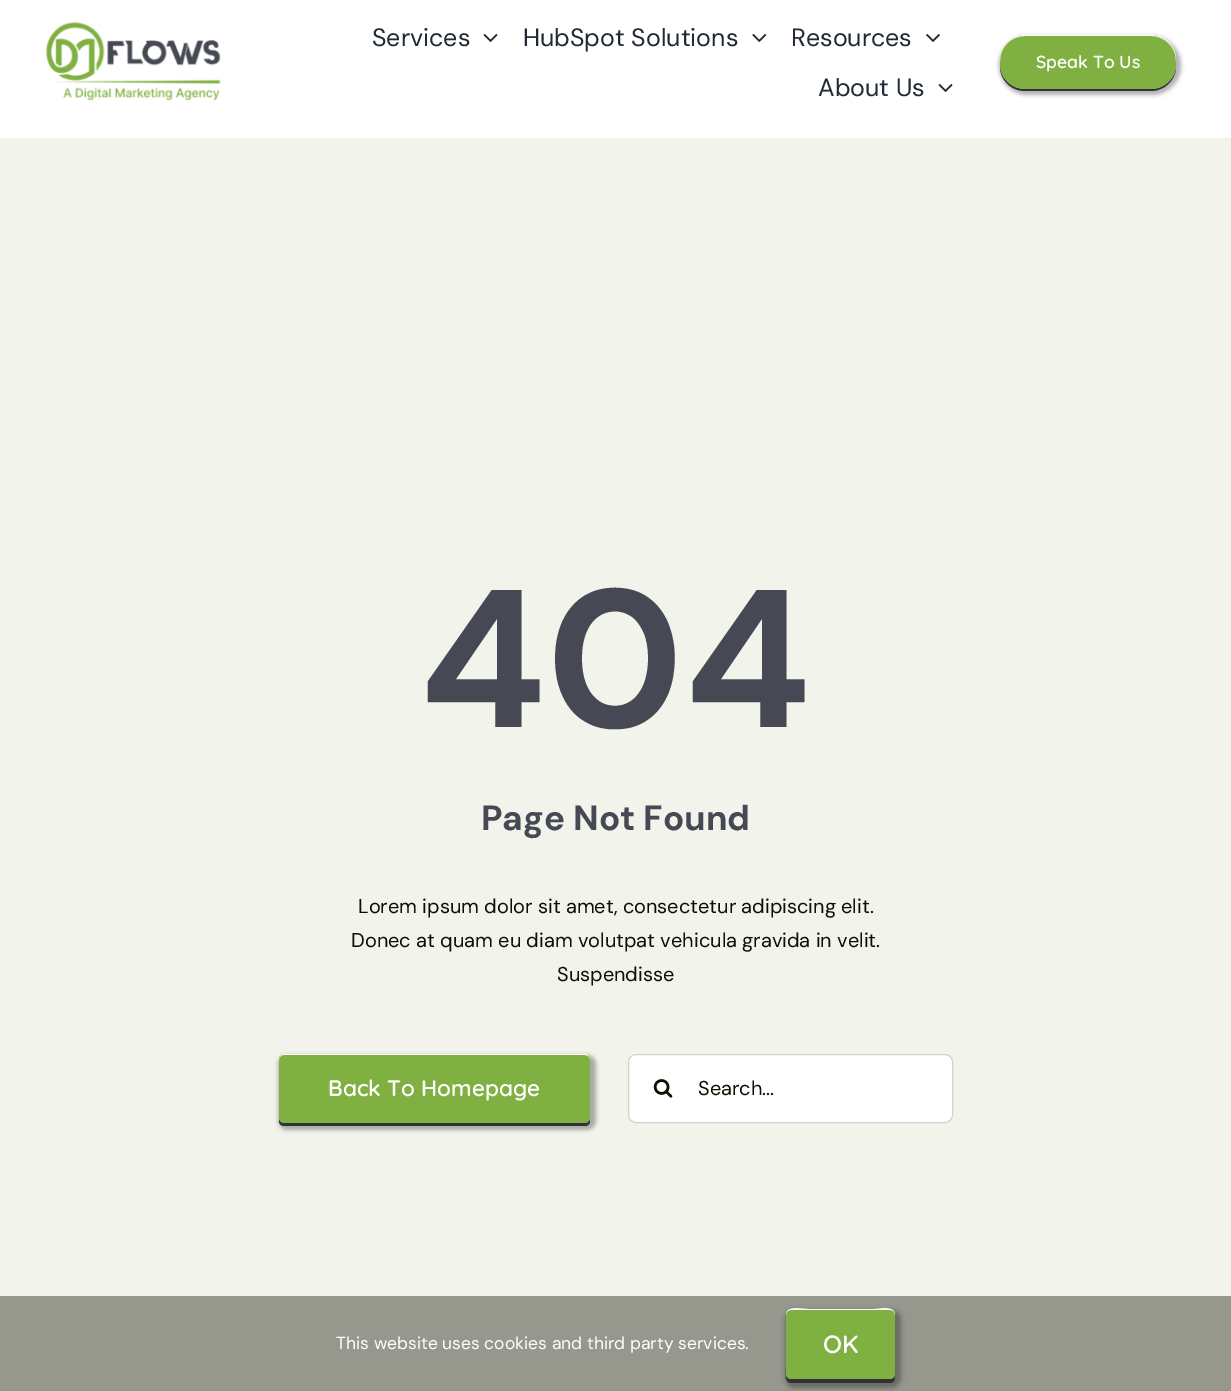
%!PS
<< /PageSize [1231 1391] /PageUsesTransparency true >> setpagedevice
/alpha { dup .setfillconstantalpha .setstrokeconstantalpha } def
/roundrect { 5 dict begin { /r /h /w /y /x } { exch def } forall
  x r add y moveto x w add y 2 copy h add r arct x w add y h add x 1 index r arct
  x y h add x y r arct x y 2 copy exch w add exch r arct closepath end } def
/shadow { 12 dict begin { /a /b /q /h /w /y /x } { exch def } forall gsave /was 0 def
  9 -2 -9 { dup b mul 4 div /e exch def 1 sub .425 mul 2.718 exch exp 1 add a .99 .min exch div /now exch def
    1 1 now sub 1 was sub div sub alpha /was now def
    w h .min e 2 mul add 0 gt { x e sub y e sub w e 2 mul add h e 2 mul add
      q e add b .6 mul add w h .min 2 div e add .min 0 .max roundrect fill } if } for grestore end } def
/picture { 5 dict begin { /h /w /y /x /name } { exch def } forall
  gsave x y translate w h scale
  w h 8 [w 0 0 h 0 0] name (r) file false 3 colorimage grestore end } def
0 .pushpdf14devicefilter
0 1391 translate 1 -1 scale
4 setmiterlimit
1 setgray
0 0 1231 1391 rectfill
(img1.rgb) 46 21 175 80 picture
/DMSans-Regular [25 0 0 -25 0 0] selectfont
0.129 0.161 0.204 setrgbcolor
372 46 moveto (Services) show
(img2.rgb) 483 34 15 8 picture
523 46 moveto (HubSpot Solutions) show
(img3.rgb) 752 34 15 8 picture
791 46 moveto (Resources) show
(img4.rgb) 926 34 14 8 picture
818 96 moveto (About Us) show
(img2.rgb) 938 84 15 8 picture
0 setgray
999 36 182 59 28 2 0.3 shadow
0.192 0.196 0.208 setrgbcolor
newpath 1000 64 moveto 1000 66 lineto 1000 80 1011 91 1025 91 curveto 1151 91 lineto 1164 91 1175 81 1176 68 curveto 1174 80 1164 89 1151 89 curveto 1025 89 lineto 1011 89 1000 78 1000 64 curveto closepath fill
0.502 0.69 0.255 setrgbcolor
1000 35 176 54 25 roundrect fill
1 setgray
newpath 1025 36 moveto 1151 36 lineto 1165 36 1176 47 1176 61 curveto 1176 60 lineto 1176 46 1165 35 1151 35 curveto 1025 35 lineto 1011 35 1000 46 1000 60 curveto 1000 61 lineto 1000 47 1011 36 1025 36 curveto closepath fill
/Quicksand-SemiBold [17.5 0 0 -17.5 0 0] selectfont
1036 68 moveto (Speak To Us) show
0.949 0.957 0.922 setrgbcolor
0 138 1231 1158 rectfill
/DMSans-Bold [196 0 0 -196 0 0] selectfont
0.275 0.286 0.329 setrgbcolor
419 727 moveto (404) show
/DMSans-Bold [35 0 0 -35 0 0] selectfont
481 830 moveto (Page Not Found) show
/DMSans-Regular [20 0 0 -20 0 0] selectfont
0.051 0.059 0.004 setrgbcolor
358 913 moveto (Lorem ipsum dolor sit amet, consectetur adipiscing elit.) show
351 947 moveto (Donec at quam eu diam volutpat vehicula gravida in velit.) show
557 981 moveto (Suspendisse) show
0 setgray
278 1055 318 75 9 2 0.3 shadow
0.192 0.196 0.208 setrgbcolor
newpath 279 1119 moveto 279 1121 lineto 279 1124 281 1126 284 1126 curveto 585 1126 lineto 588 1126 590 1124 590 1121 curveto 590 1118 lineto 590 1120 588 1122 585 1122 curveto 284 1122 lineto 282 1122 280 1121 279 1119 curveto closepath fill
0.502 0.69 0.255 setrgbcolor
279 1054 311 69 5 roundrect fill
1 setgray
newpath 284 1055 moveto 585 1055 lineto 588 1055 590 1057 590 1060 curveto 590 1057 588 1054 585 1054 curveto 284 1054 lineto 281 1054 279 1057 279 1060 curveto 279 1057 281 1055 284 1055 curveto closepath fill
/Quicksand-SemiBold [22.5 0 0 -22.5 0 0] selectfont
328 1096 moveto (Back To Homepage) show
628.5 1054.5 324 68 7.5 roundrect gsave fill grestore
0.82 setgray
stroke
(img5.rgb) 653 1079 20 19 picture
/DMSans-Regular [20 0 0 -20 0 0] selectfont
0.051 0.059 0.004 setrgbcolor
698 1095 moveto (Search...) show
0.588 0.596 0.557 setrgbcolor
0 1296 1231 95 rectfill
/DMSans-Regular [17.5 0 0 -17.5 0 0] selectfont
1 setgray
336 1349 moveto (This website uses cookies and third party services.) show
0 setgray
785 1310 116 78 9 2.5 0.3 shadow
0.192 0.196 0.208 setrgbcolor
newpath 786 1316 moveto 786 1368 lineto 786 1372 784 1383 791 1383 curveto 890 1383 lineto 895 1383 895 1378 895 1374 curveto 895 1377 893 1379 890 1379 curveto 791 1379 lineto 788 1379 786 1377 786 1374 curveto closepath fill
0.502 0.69 0.255 setrgbcolor
786 1309 109 70 5 roundrect fill
1 setgray
newpath 791 1310 moveto 890 1310 lineto 893 1310 895 1312 895 1315 curveto 895 1305 879 1309 874 1309 curveto 808 1309 lineto 802 1309 786 1305 786 1315 curveto 786 1312 788 1310 791 1310 curveto closepath fill
/Quicksand-SemiBold [25 0 0 -25 0 0] selectfont
823 1353 moveto (OK) show
.poppdf14devicefilter showpage
